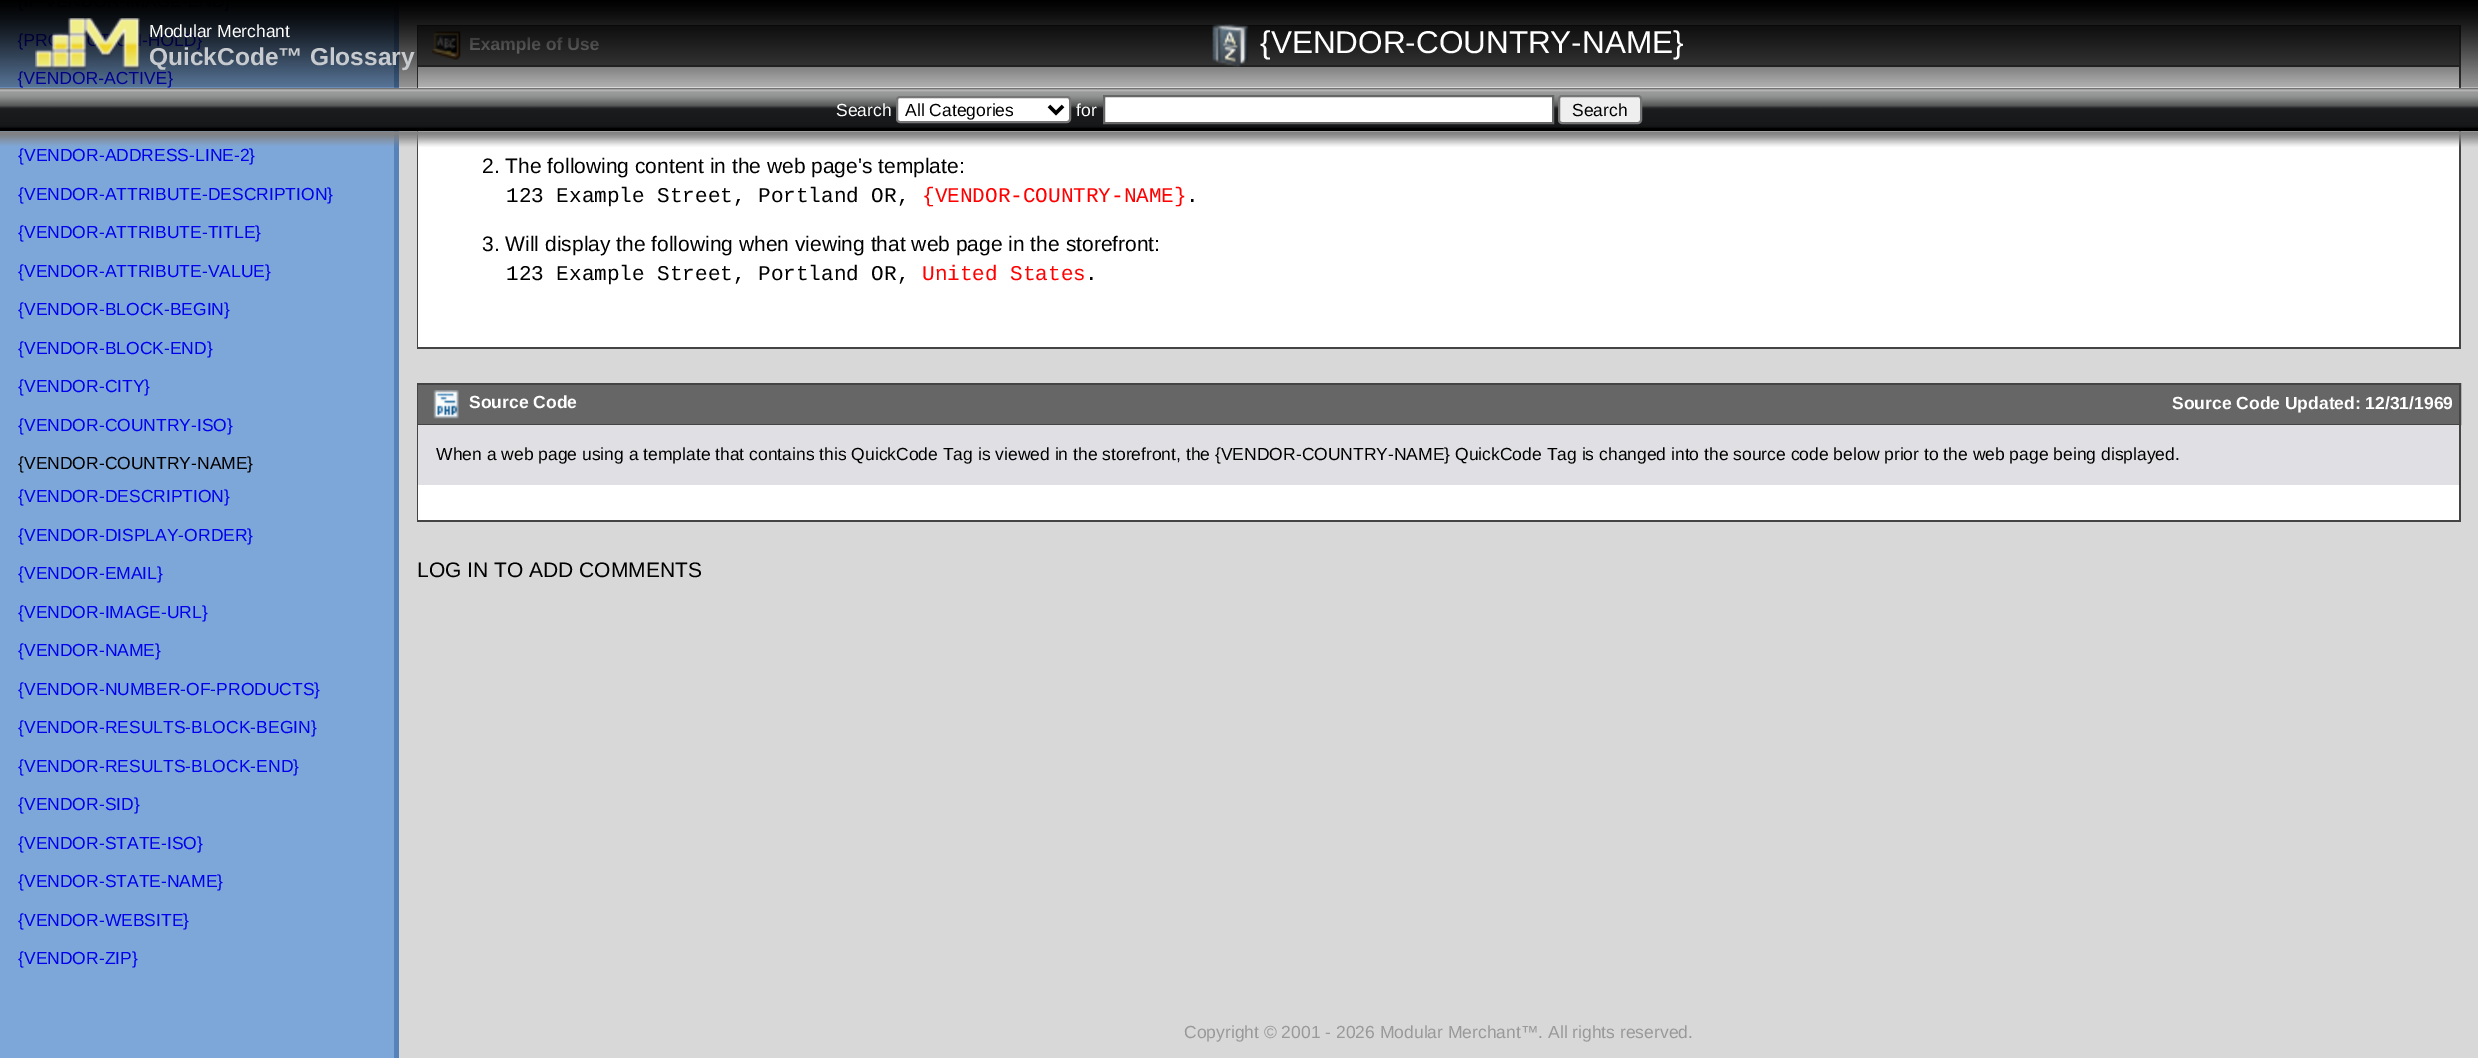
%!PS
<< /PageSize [2478 1058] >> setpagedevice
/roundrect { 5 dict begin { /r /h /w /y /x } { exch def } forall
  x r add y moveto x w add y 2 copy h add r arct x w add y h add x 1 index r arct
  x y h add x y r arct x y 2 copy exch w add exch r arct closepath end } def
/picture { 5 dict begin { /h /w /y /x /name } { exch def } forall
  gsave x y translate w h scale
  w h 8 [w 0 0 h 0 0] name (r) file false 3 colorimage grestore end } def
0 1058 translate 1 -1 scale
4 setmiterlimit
0.847 setgray
0 0 2478 1058 rectfill
0.49 0.655 0.851 setrgbcolor
0 2 394 1056 rectfill
/LiberationSans-Regular [17.5 0 0 -17.5 0 0] selectfont
0 0 0.933 setrgbcolor
18 84 moveto ({VENDOR-ACTIVE}) show
0.329 0.51 0.725 setrgbcolor
394 0 5 1058 rectfill
0.267 setgray
2 setlinewidth
418 26 2042 40 rectstroke
0.4 setgray
418 26 2041 39 rectfill
(img6.rgb) 432 31 29 29 picture
0.267 setgray
2459 67 2 281 rectfill
417 347 2044 2 rectfill
417 67 2 281 rectfill
1 setgray
418 67 2041 280 rectfill
(img1.rgb) 0 0 2478 88 picture
(img2.rgb) 35 18 105 53 picture
149 37 moveto (Modular Merchant) show
/LiberationSans-Bold [24.5 0 0 -24.5 0 0] selectfont
0.78 0.792 0.808 setrgbcolor
149 65 moveto (QuickCode™ Glossary) show
(img3.rgb) 1212 24 37 43 picture
/LiberationSans-Regular [31.5 0 0 -31.5 0 0] selectfont
1 setgray
1260 53 moveto ({VENDOR-COUNTRY-NAME}) show
0 setgray
0 127 2478 4 rectfill
(img4.rgb) 0 88 2478 40 picture
/LiberationSans-Regular [17.5 0 0 -17.5 0 0] selectfont
1 setgray
836 116 moveto (Search) show
897 97 173 25 3 roundrect gsave fill grestore
0.463 setgray
stroke
0 setgray
3.5 setlinewidth
newpath 1049 106 moveto 1056 113 lineto 1063 106 lineto stroke
905 116 moveto (All Categories) show
1 setgray
1076 116 moveto (for) show
newpath 1104 96 moveto 1553 96 lineto 1553 123 lineto 1104 123 lineto closepath gsave fill grestore
0.4 setgray
2 setlinewidth
stroke
0.937 setgray
1559 96 82 27 3 roundrect gsave fill grestore
0.463 setgray
stroke
0 setgray
1572 116 moveto (Search) show
(img5.rgb) 0 131 2478 16 picture
0 0 0.933 setrgbcolor
18 161 moveto ({VENDOR-ADDRESS-LINE-2}) show
18 200 moveto ({VENDOR-ATTRIBUTE-DESCRIPTION}) show
18 238 moveto ({VENDOR-ATTRIBUTE-TITLE}) show
18 277 moveto ({VENDOR-ATTRIBUTE-VALUE}) show
18 315 moveto ({VENDOR-BLOCK-BEGIN}) show
18 354 moveto ({VENDOR-BLOCK-END}) show
18 392 moveto ({VENDOR-CITY}) show
18 431 moveto ({VENDOR-COUNTRY-ISO}) show
0 setgray
18 469 moveto ({VENDOR-COUNTRY-NAME}) show
0 0 0.933 setrgbcolor
18 502 moveto ({VENDOR-DESCRIPTION}) show
18 541 moveto ({VENDOR-DISPLAY-ORDER}) show
18 579 moveto ({VENDOR-EMAIL}) show
18 618 moveto ({VENDOR-IMAGE-URL}) show
18 656 moveto ({VENDOR-NAME}) show
18 695 moveto ({VENDOR-NUMBER-OF-PRODUCTS}) show
18 733 moveto ({VENDOR-RESULTS-BLOCK-BEGIN}) show
18 772 moveto ({VENDOR-RESULTS-BLOCK-END}) show
18 810 moveto ({VENDOR-SID}) show
18 849 moveto ({VENDOR-STATE-ISO}) show
18 887 moveto ({VENDOR-STATE-NAME}) show
18 926 moveto ({VENDOR-WEBSITE}) show
18 964 moveto ({VENDOR-ZIP}) show
/LiberationSans-Regular [21 0 0 -21 0 0] selectfont
0 setgray
482 173 moveto (2. The following content in the web page's template:) show
/LiberationMono-Regular [21 0 0 -21 0 0] selectfont
506 202 moveto (123 Example Street, Portland OR,) show
1 0 0 setrgbcolor
922 202 moveto ({VENDOR-COUNTRY-NAME}) show
0 setgray
1186 202 moveto (.) show
/LiberationSans-Regular [21 0 0 -21 0 0] selectfont
482 251 moveto (3. Will display the following when viewing that web page in the storefront:) show
/LiberationMono-Regular [21 0 0 -21 0 0] selectfont
506 280 moveto (123 Example Street, Portland OR,) show
1 0 0 setrgbcolor
922 280 moveto (United States) show
0 setgray
1085 280 moveto (.) show
0.267 setgray
418 384 2042 40 rectstroke
0.4 setgray
418 385 2041 39 rectfill
(img7.rgb) 433 390 26 29 picture
/LiberationSans-Bold [17.5 0 0 -17.5 0 0] selectfont
1 setgray
469 408 moveto (Source Code) show
2172 409 moveto (Source Code Updated: 12/31/1969) show
0.267 setgray
2459 425 2 97 rectfill
417 520 2044 2 rectfill
417 425 2 97 rectfill
0.878 0.875 0.89 setrgbcolor
418 425 2041 60 rectfill
/LiberationSans-Regular [17.5 0 0 -17.5 0 0] selectfont
0 setgray
436 460 moveto (When a web page using a template that contains this QuickCode Tag is viewed in the storefront, the {VENDOR-COUNTRY-NAME} QuickCode Tag is changed into the source code below prior to the web page being displayed.) show
1 setgray
418 485 2041 35 rectfill
/LiberationSans-Regular [21 0 0 -21 0 0] selectfont
0 setgray
417 577 moveto (LOG IN TO ADD COMMENTS) show
/LiberationSans-Regular [17.5 0 0 -17.5 0 0] selectfont
0.6 setgray
1184 1038 moveto (Copyright © 2001 - 2026 Modular Merchant™. All rights reserved.) show
showpage
